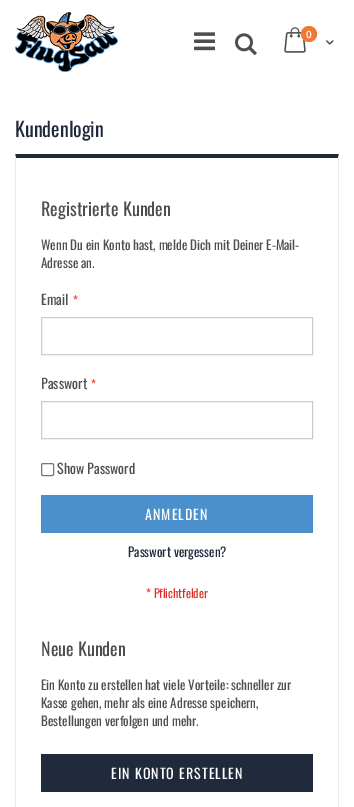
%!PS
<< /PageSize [354 807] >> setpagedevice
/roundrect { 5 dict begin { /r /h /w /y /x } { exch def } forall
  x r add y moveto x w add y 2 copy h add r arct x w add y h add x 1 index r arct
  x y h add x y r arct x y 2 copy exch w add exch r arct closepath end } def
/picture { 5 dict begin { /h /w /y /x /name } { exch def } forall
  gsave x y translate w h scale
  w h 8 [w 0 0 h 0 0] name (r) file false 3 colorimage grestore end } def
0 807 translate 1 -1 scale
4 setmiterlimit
1 setgray
0 0 354 807 rectfill
(img1.rgb) 15 12 103 60 picture
(img2.rgb) 194 32 21 19 picture
(img3.rgb) 235 33 22 23 picture
(img4.rgb) 284 27 22 26 picture
0.945 0.467 0.204 setrgbcolor
newpath 309 34 8 0 360 arc closepath fill
/OpenSans-SemiBold [10 0 0 -10 0 0] selectfont
1 setgray
306 38 moveto (0) show
(img5.rgb) 326 40 8 5 picture
/Oswald-Regular [20 0 0 -20 0 0] selectfont
0.129 0.161 0.235 setrgbcolor
15 137 moveto (Kundenlogin) show
newpath 15 154 moveto 339 154 lineto 338 158 lineto 16 158 lineto closepath fill
0.925 setgray
newpath 339 154 moveto 339 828 lineto 338 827 lineto 338 158 lineto closepath fill
newpath 15 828 moveto 15 154 lineto 16 158 lineto 16 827 lineto closepath fill
/Oswald-Regular [18 0 0 -18 0 0] selectfont
0.31 0.302 0.302 setrgbcolor
41 216 moveto (Registrierte Kunden) show
/Oswald-Regular [13 0 0 -13 0 0] selectfont
41 250 moveto (Wenn Du ein Konto hast, melde Dich mit Deiner E-Mail-) show
41 268 moveto (Adresse an.) show
/Oswald-Regular [14 0 0 -14 0 0] selectfont
41 305 moveto (Email) show
/Oswald-Regular [12 0 0 -12 0 0] selectfont
0.878 0.169 0.153 setrgbcolor
73 305 moveto (*) show
0.8 setgray
41.5 317.5 271 37 rectstroke
/Oswald-Regular [14 0 0 -14 0 0] selectfont
0.31 0.302 0.302 setrgbcolor
41 389 moveto (Passwort) show
/Oswald-Regular [12 0 0 -12 0 0] selectfont
0.878 0.169 0.153 setrgbcolor
91 389 moveto (*) show
0.8 setgray
41.5 401.5 271 37 rectstroke
0.463 setgray
41.5 463.5 12 12 1.5 roundrect stroke
/Oswald-Regular [14 0 0 -14 0 0] selectfont
0.31 0.302 0.302 setrgbcolor
57 474 moveto (Show Password) show
0.294 0.565 0.804 setrgbcolor
41 495 272 38 rectfill
1 setgray
145 520 moveto 1 0 (ANMELDEN) ashow
/Oswald-Regular [13 0 0 -13 0 0] selectfont
0.129 0.161 0.235 setrgbcolor
128 557 moveto (Passwort vergessen?) show
/Oswald-Regular [12 0 0 -12 0 0] selectfont
0.878 0.169 0.153 setrgbcolor
146 598 moveto (* Pflichtfelder) show
/Oswald-Regular [18 0 0 -18 0 0] selectfont
0.31 0.302 0.302 setrgbcolor
41 656 moveto (Neue Kunden) show
/Oswald-Regular [13 0 0 -13 0 0] selectfont
41 690 moveto (Ein Konto zu erstellen hat viele Vorteile: schneller zur) show
41 708 moveto (Kasse gehen, mehr als eine Adresse speichern,) show
41 726 moveto (Bestellungen verfolgen und mehr.) show
0.129 0.161 0.235 setrgbcolor
41 754 272 38 rectfill
/Oswald-Regular [14 0 0 -14 0 0] selectfont
1 setgray
111 779 moveto 1 0 (EIN KONTO ERSTELLEN) ashow
showpage
